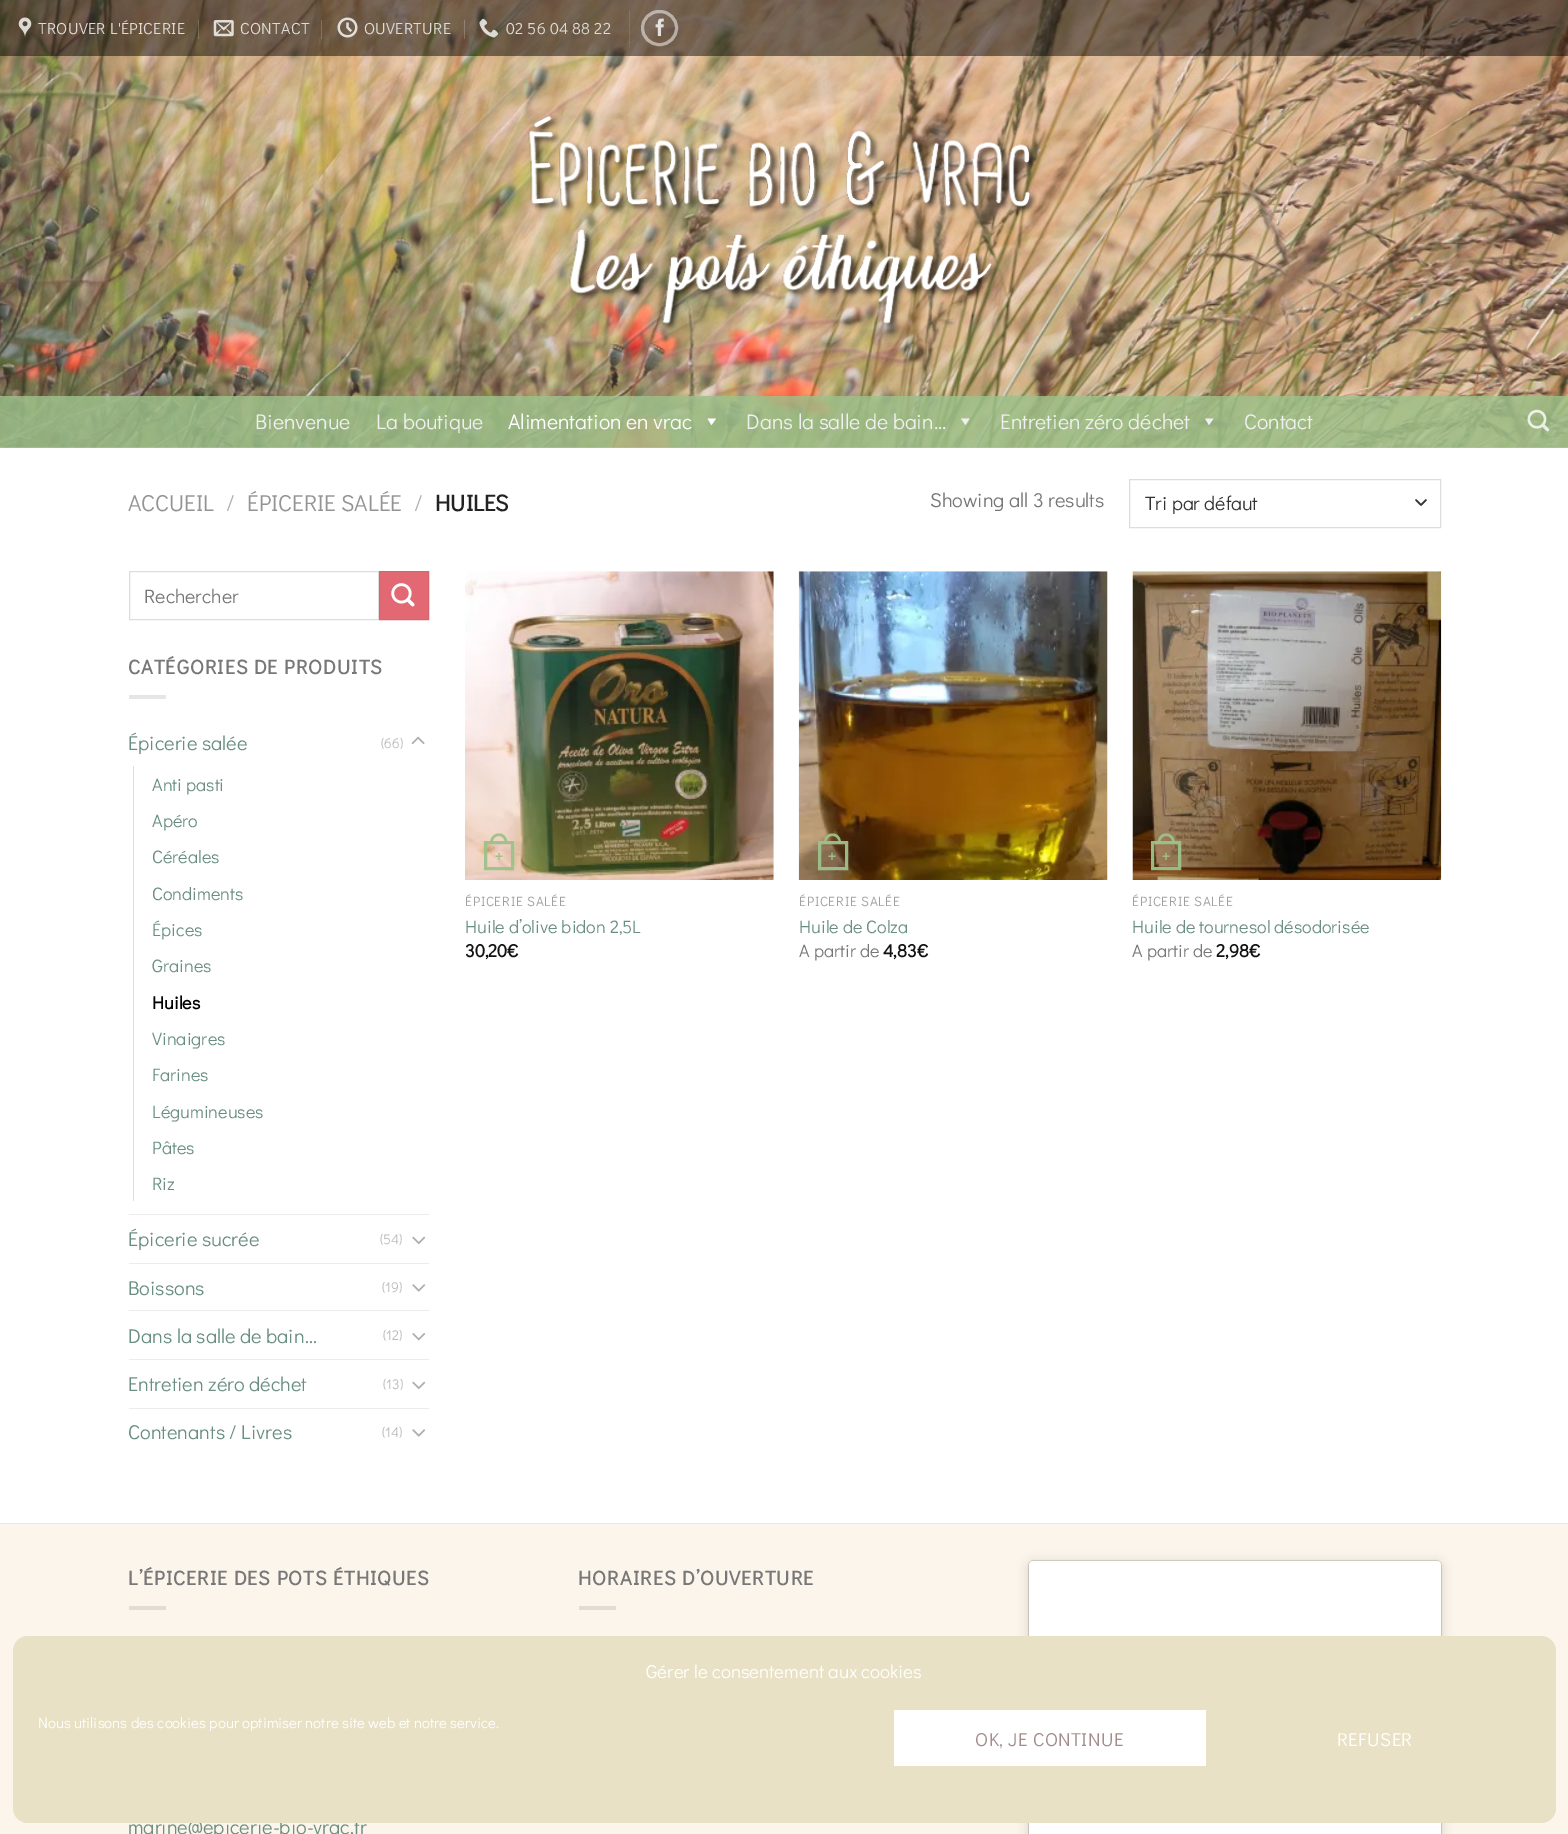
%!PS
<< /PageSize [1568 1834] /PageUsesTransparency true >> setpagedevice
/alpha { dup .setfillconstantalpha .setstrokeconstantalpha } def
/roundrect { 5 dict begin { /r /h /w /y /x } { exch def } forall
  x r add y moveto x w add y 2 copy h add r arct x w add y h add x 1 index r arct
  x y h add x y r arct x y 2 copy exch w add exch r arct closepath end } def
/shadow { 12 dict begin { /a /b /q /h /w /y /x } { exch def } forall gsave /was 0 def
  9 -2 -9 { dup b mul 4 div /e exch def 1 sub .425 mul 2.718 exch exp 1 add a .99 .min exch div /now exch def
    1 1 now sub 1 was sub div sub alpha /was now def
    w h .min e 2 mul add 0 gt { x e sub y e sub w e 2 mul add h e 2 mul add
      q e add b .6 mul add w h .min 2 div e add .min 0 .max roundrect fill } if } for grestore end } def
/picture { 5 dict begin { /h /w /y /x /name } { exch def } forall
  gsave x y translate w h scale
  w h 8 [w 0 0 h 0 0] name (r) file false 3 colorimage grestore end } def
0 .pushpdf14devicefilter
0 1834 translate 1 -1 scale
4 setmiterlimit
1 setgray
0 0 1568 1834 rectfill
(img1.rgb) 0 0 1568 448 picture
0.48 alpha
0 setgray
0 0 1568 56 rectfill
1 alpha
(img2.rgb) 18 17 14 20 picture
/DidactGothic-Regular [16 0 0 -16 0 0] selectfont
0.875 0.863 0.847 setrgbcolor
38 34 moveto 0.3 0 (TROUVER L'ÉPICERIE) ashow
0.2 alpha
1 setgray
198 20 1 19 rectfill
1 alpha
(img3.rgb) 213 20 21 17 picture
0.875 0.863 0.847 setrgbcolor
240 34 moveto 0.3 0 (CONTACT) ashow
0.2 alpha
1 setgray
321 20 1 19 rectfill
1 alpha
(img4.rgb) 337 17 21 21 picture
0.875 0.863 0.847 setrgbcolor
364 34 moveto 0.3 0 (OUVERTURE) ashow
0.2 alpha
1 setgray
464 20 1 19 rectfill
1 alpha
(img5.rgb) 479 18 20 20 picture
0.875 0.863 0.847 setrgbcolor
506 34 moveto 0.3 0 (02 56 04 88 22) ashow
0.1 alpha
1 setgray
629 10 1 38 rectfill
0.5 alpha
3 setlinewidth
642.5 11.5 34 33 16.5 roundrect stroke
1 alpha
(img6.rgb) 655 18 9 19 picture
(img7.rgb) 528 115 509 216 picture
0.82 alpha
0.616 0.757 0.541 setrgbcolor
0 396 1568 52 rectfill
/DidactGothic-Regular [21.25 0 0 -21.25 0 0] selectfont
1 alpha
0.941 setgray
255 429 moveto (Bienvenue) show
376 429 moveto (La boutique) show
1 setgray
508 429 moveto (Alimentation en vrac) show
newpath 716 418.5 moveto 711.5 425 lineto 707.5 418.5 lineto closepath fill
0.941 setgray
746 429 moveto (Dans la salle de bain...) show
newpath 969.5 418.5 moveto 965.5 425 lineto 961 418.5 lineto closepath fill
1000 429 moveto (Entretien zéro déchet) show
newpath 1213.5 418.5 moveto 1209 425 lineto 1205 418.5 lineto closepath fill
1244 429 moveto (Contact) show
(img8.rgb) 1527 409 23 23 picture
/DidactGothic-Regular [23 0 0 -23 0 0] selectfont
0.58 setgray
128 511 moveto (ACCUEIL) show
0.698 setgray
226 511 moveto (/) show
0.58 setgray
247 511 moveto (ÉPICERIE SALÉE) show
0.698 setgray
414 511 moveto (/) show
/DidactGothic-Bold [23 0 0 -23 0 0] selectfont
0.133 setgray
435 511 moveto (HUILES) show
/DidactGothic-Regular [20 0 0 -20 0 0] selectfont
0.467 setgray
930 507 moveto (Showing all 3 results) show
0.2 setgray
1.7 setlinewidth
1 setlinecap
1 setlinejoin
newpath 1416 500 moveto 1421 505 lineto 1426 500 lineto stroke
0.867 setgray
1 setlinewidth
0 setlinecap
0 setlinejoin
1129.5 479.5 311 48 rectstroke
/DidactGothic-Regular [19.5 0 0 -19.5 0 0] selectfont
0.2 setgray
1145 510 moveto (Tri par défaut) show
0.867 setgray
129.5 571.5 249 48 rectstroke
0.467 setgray
144 603 moveto (Rechercher) show
0.886 0.412 0.451 setrgbcolor
newpath 379.5 571.5 moveto 428.5 571.5 lineto 428.5 619.5 lineto 379.5 619.5 lineto closepath gsave fill grestore
0.843 0.392 0.427 setrgbcolor
stroke
(img9.rgb) 391 583 24 24 picture
/DidactGothic-Bold [20 0 0 -20 0 0] selectfont
0.467 setgray
128 674 moveto 1 0 (CATÉGORIES DE PRODUITS) ashow
0.902 setgray
129 695 37 4 rectfill
/DidactGothic-Regular [20 0 0 -20 0 0] selectfont
0.416 0.561 0.506 setrgbcolor
128 750 moveto (Épicerie salée) show
/DidactGothic-Regular [14 0 0 -14 0 0] selectfont
0.733 setgray
381 748 moveto (\(66\)) show
(img10.rgb) 411 736 14 9 picture
0.867 setgray
133 766 1 435 rectfill
/DidactGothic-Regular [18 0 0 -18 0 0] selectfont
0.416 0.561 0.506 setrgbcolor
152 791 moveto (Anti pasti) show
152 827 moveto (Apéro) show
152 863 moveto (Céréales) show
152 900 moveto (Condiments) show
152 936 moveto (Épices) show
152 972 moveto (Graines) show
/DidactGothic-Bold [18 0 0 -18 0 0] selectfont
0 setgray
152 1009 moveto (Huiles) show
/DidactGothic-Regular [18 0 0 -18 0 0] selectfont
0.416 0.561 0.506 setrgbcolor
152 1045 moveto (Vinaigres) show
152 1081 moveto (Farines) show
152 1118 moveto (Légumineuses) show
152 1154 moveto (Pâtes) show
152 1190 moveto (Riz) show
0.925 setgray
129 1214 300 1 rectfill
/DidactGothic-Regular [20 0 0 -20 0 0] selectfont
0.416 0.561 0.506 setrgbcolor
128 1246 moveto (Épicerie sucrée) show
/DidactGothic-Regular [14 0 0 -14 0 0] selectfont
0.733 setgray
380 1244 moveto (\(54\)) show
(img11.rgb) 412 1236 14 9 picture
0.925 setgray
129 1263 300 1 rectfill
/DidactGothic-Regular [20 0 0 -20 0 0] selectfont
0.416 0.561 0.506 setrgbcolor
128 1295 moveto (Boissons) show
/DidactGothic-Regular [14 0 0 -14 0 0] selectfont
0.733 setgray
382 1292 moveto (\(19\)) show
(img12.rgb) 412 1284 14 8 picture
0.925 setgray
129 1310 300 1 rectfill
/DidactGothic-Regular [20 0 0 -20 0 0] selectfont
0.416 0.561 0.506 setrgbcolor
128 1343 moveto (Dans la salle de bain...) show
/DidactGothic-Regular [14 0 0 -14 0 0] selectfont
0.733 setgray
383 1340 moveto (\(12\)) show
(img13.rgb) 412 1333 14 8 picture
0.925 setgray
129 1359 300 1 rectfill
/DidactGothic-Regular [20 0 0 -20 0 0] selectfont
0.416 0.561 0.506 setrgbcolor
128 1391 moveto (Entretien zéro déchet) show
/DidactGothic-Regular [14 0 0 -14 0 0] selectfont
0.733 setgray
383 1389 moveto (\(13\)) show
(img11.rgb) 412 1381 14 9 picture
0.925 setgray
129 1408 300 1 rectfill
/DidactGothic-Regular [20 0 0 -20 0 0] selectfont
0.416 0.561 0.506 setrgbcolor
128 1439 moveto (Contenants / Livres) show
/DidactGothic-Regular [14 0 0 -14 0 0] selectfont
0.733 setgray
382 1437 moveto (\(14\)) show
(img12.rgb) 412 1429 14 8 picture
(img14.rgb) 465 571 309 309 picture
0.95 alpha
0.616 0.757 0.541 setrgbcolor
3 setlinewidth
485.5 842.5 27 26 rectstroke
newpath 499 833.5 moveto 504.5 833.5 507.5 838.5 507.5 843.5 curveto 490 843.5 lineto 490 838.5 493 833.5 499 833.5 curveto closepath 499 836 moveto 503 836 505 840 505 843.5 curveto 492.5 843.5 lineto 492.5 840 494.5 836 499 836 curveto closepath eofill
/LiberationSans-Bold [14 0 0 -14 0 0] selectfont
1 alpha
0.631 0.761 0.553 setrgbcolor
495 861 moveto (+) show
/DidactGothic-Regular [13.5 0 0 -13.5 0 0] selectfont
0.627 setgray
465 906 moveto 0.75 0 (ÉPICERIE SALÉE) ashow
/DidactGothic-Regular [18 0 0 -18 0 0] selectfont
0.416 0.561 0.506 setrgbcolor
465 933 moveto (Huile d’olive bidon 2,5L) show
/DidactGothic-Bold [18 0 0 -18 0 0] selectfont
0.067 setgray
465 957 moveto (30,20€) show
(img15.rgb) 798 571 310 309 picture
0.95 alpha
0.616 0.757 0.541 setrgbcolor
819.5 842.5 27 26 rectstroke
newpath 832.5 833.5 moveto 838.5 833.5 841 838.5 841 843.5 curveto 824 843.5 lineto 824 838.5 826.5 833.5 832.5 833.5 curveto closepath 832.5 836 moveto 837 836 839 840 839 843.5 curveto 826 843.5 lineto 826 840 828 836 832.5 836 curveto closepath eofill
/LiberationSans-Bold [14 0 0 -14 0 0] selectfont
1 alpha
0.612 0.741 0.529 setrgbcolor
828 861 moveto (+) show
/DidactGothic-Regular [13.5 0 0 -13.5 0 0] selectfont
0.627 setgray
799 906 moveto 0.75 0 (ÉPICERIE SALÉE) ashow
/DidactGothic-Regular [18 0 0 -18 0 0] selectfont
0.416 0.561 0.506 setrgbcolor
799 933 moveto (Huile de Colza) show
0.467 setgray
799 957 moveto (A partir de) show
/DidactGothic-Bold [18 0 0 -18 0 0] selectfont
0.067 setgray
883 957 moveto (4,83€) show
(img16.rgb) 1132 571 310 309 picture
0.95 alpha
0.616 0.757 0.541 setrgbcolor
1152.5 842.5 27 26 rectstroke
newpath 1166 833.5 moveto 1172 833.5 1175 838.5 1175 843.5 curveto 1157.5 843.5 lineto 1157.5 838.5 1160.5 833.5 1166 833.5 curveto closepath 1166 836 moveto 1170.5 836 1172.5 840 1172.5 843.5 curveto 1160 843.5 lineto 1160 840 1162 836 1166 836 curveto closepath eofill
/LiberationSans-Bold [14 0 0 -14 0 0] selectfont
1 alpha
0.612 0.741 0.529 setrgbcolor
1162 861 moveto (+) show
/DidactGothic-Regular [13.5 0 0 -13.5 0 0] selectfont
0.627 setgray
1132 906 moveto 0.75 0 (ÉPICERIE SALÉE) ashow
/DidactGothic-Regular [18 0 0 -18 0 0] selectfont
0.416 0.561 0.506 setrgbcolor
1132 933 moveto (Huile de tournesol désodorisée) show
0.467 setgray
1132 957 moveto (A partir de) show
/DidactGothic-Bold [18 0 0 -18 0 0] selectfont
0.067 setgray
1216 957 moveto (2,98€) show
0.984 0.961 0.922 setrgbcolor
0 1524 1568 310 rectfill
0.933 0.914 0.875 setrgbcolor
0 1523 1568 1 rectfill
/DidactGothic-Bold [20 0 0 -20 0 0] selectfont
0.467 setgray
128 1585 moveto 1 0 (L’ÉPICERIE DES POTS ÉTHIQUES) ashow
0.886 0.867 0.831 setrgbcolor
129 1606 37 4 rectfill
/DidactGothic-Regular [20 0 0 -20 0 0] selectfont
0.416 0.561 0.506 setrgbcolor
128 1834 moveto (marine@epicerie-bio-vrac.fr) show
/DidactGothic-Bold [20 0 0 -20 0 0] selectfont
0.467 setgray
578 1585 moveto 1 0 (HORAIRES D’OUVERTURE) ashow
0.886 0.867 0.831 setrgbcolor
579 1606 37 4 rectfill
0 setgray
1029 1563 412 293 4 6 0.15 shadow
1029 1561 412 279 4 0.5 0.5 shadow
1 setgray
1029 1561 412 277 4 roundrect fill
0.91 0.882 0.773 setrgbcolor
13 1636 1543 187 15 roundrect fill
/DidactGothic-Regular [18.75 0 0 -18.75 0 0] selectfont
1 setgray
646 1678 moveto (Gérer le consentement aux cookies) show
/DidactGothic-Regular [15 0 0 -15 0 0] selectfont
38 1728 moveto (Nous utilisons des cookies pour optimiser notre site web et notre service.) show
894 1710 312 56 rectfill
/DidactGothic-Regular [18.75 0 0 -18.75 0 0] selectfont
0.647 0.545 0.545 setrgbcolor
975 1746 moveto 0.5 0 (OK, JE CONTINUE) ashow
1 setgray
1337 1746 moveto 0.5 0 (REFUSER) ashow
.poppdf14devicefilter showpage
